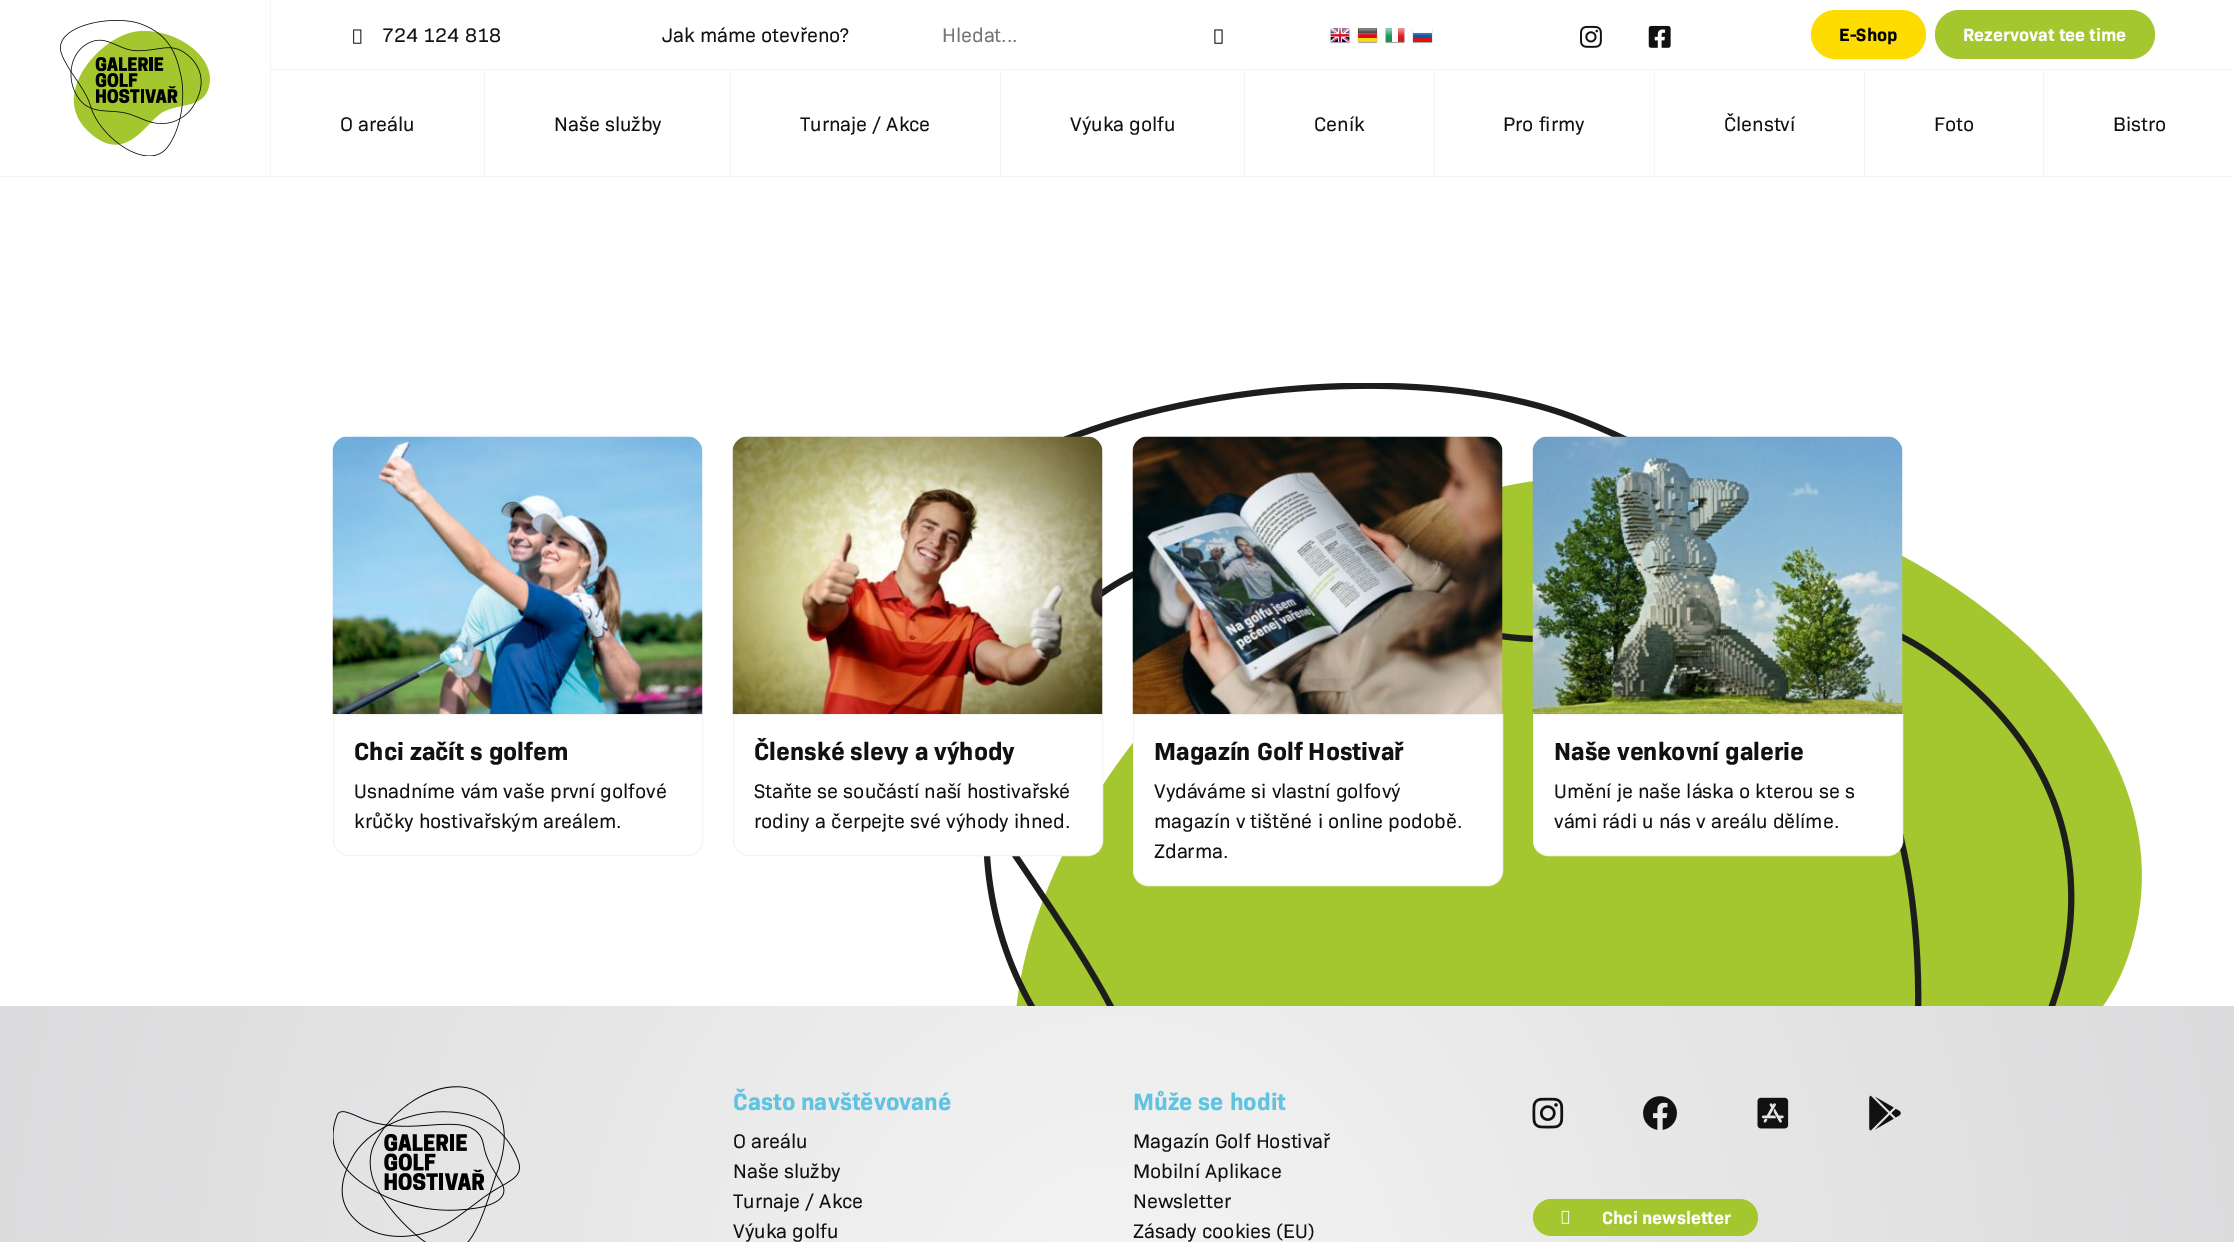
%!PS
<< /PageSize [2234 1242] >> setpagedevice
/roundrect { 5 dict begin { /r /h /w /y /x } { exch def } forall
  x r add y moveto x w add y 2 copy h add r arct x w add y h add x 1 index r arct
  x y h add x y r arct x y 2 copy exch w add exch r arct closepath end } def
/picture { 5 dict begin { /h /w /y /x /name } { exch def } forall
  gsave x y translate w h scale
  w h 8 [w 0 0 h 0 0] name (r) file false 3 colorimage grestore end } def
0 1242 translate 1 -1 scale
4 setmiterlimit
1 setgray
0 0 2234 1242 rectfill
0.957 setgray
0 176 2234 1 rectfill
270 0 1 176 rectfill
(img1.rgb) 60 20 150 136 picture
271 69 1963 1 rectfill
(img2.rgb) 353 29 9 15 picture
/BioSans-Regular [20 0 0 -20 0 0] selectfont
0.067 setgray
382 42 moveto (724 124 818) show
662 42 moveto (Jak máme otevřeno?) show
0.459 setgray
942 42 moveto (Hledat...) show
(img3.rgb) 1214 29 9 15 picture
(img4.rgb) 1330 28 20 16 picture
(img5.rgb) 1357 28 21 16 picture
(img6.rgb) 1385 28 20 16 picture
(img7.rgb) 1412 28 21 16 picture
(img8.rgb) 1580 25 22 23 picture
(img9.rgb) 1648 25 23 23 picture
1 0.863 0 setrgbcolor
1811 10 115 49 24.5 roundrect fill
/BioSans-Bold [18 0 0 -18 0 0] selectfont
0 setgray
1839 41 moveto (E-Shop) show
0.643 0.776 0.18 setrgbcolor
1935 10 220 49 24.5 roundrect fill
1 setgray
1963 41 moveto (Rezervovat tee time) show
0.957 setgray
484 70 1560 106 rectfill
/BioSans-Regular [20 0 0 -20 0 0] selectfont
0.067 setgray
340 131 moveto (O areálu) show
1 setgray
485 70 245 106 rectfill
0.067 setgray
554 131 moveto (Naše služby) show
1 setgray
731 70 269 106 rectfill
0.067 setgray
800 131 moveto (Turnaje / Akce) show
1 setgray
1001 70 243 106 rectfill
0.067 setgray
1070 131 moveto (Výuka golfu) show
1 setgray
1245 70 189 106 rectfill
0.067 setgray
1314 131 moveto (Ceník) show
1 setgray
1435 70 219 106 rectfill
0.067 setgray
1503 131 moveto (Pro firmy) show
1 setgray
1655 70 209 106 rectfill
0.067 setgray
1724 131 moveto (Členství) show
1 setgray
1865 70 178 106 rectfill
0.067 setgray
1934 131 moveto (Foto) show
2113 131 moveto (Bistro) show
(img10.rgb) 983 383 1159 623 picture
(img11.rgb) 332 436 371 278 picture
0.957 setgray
newpath 333.5 714.5 moveto 702.5 714.5 lineto 702.5 841 lineto 702.5 849 696 855.5 688 855.5 curveto 348 855.5 lineto 340 855.5 333.5 849 333.5 841 curveto closepath stroke
/BioSans-Bold [25 0 0 -25 0 0] selectfont
0.067 setgray
354 760 moveto (Chci začít s golfem) show
/BioSans-Regular [20 0 0 -20 0 0] selectfont
354 798 moveto (Usnadníme vám vaše první golfové) show
354 828 moveto (krůčky hostivařským areálem.) show
(img12.rgb) 732 436 371 278 picture
1 setgray
newpath 733.5 714.5 moveto 1102.5 714.5 lineto 1102.5 841 lineto 1102.5 849 1096 855.5 1088 855.5 curveto 748 855.5 lineto 740 855.5 733.5 849 733.5 841 curveto closepath gsave fill grestore
0.957 setgray
stroke
/BioSans-Bold [25 0 0 -25 0 0] selectfont
0.067 setgray
754 760 moveto (Členské slevy a výhody) show
/BioSans-Regular [20 0 0 -20 0 0] selectfont
754 798 moveto (Staňte se součástí naší hostivařské) show
754 828 moveto (rodiny a čerpejte své výhody ihned.) show
(img13.rgb) 1132 436 371 278 picture
1 setgray
newpath 1133.5 714.5 moveto 1502.5 714.5 lineto 1502.5 871 lineto 1502.5 879 1496 885.5 1488 885.5 curveto 1148 885.5 lineto 1140 885.5 1133.5 879 1133.5 871 curveto closepath gsave fill grestore
0.957 setgray
stroke
/BioSans-Bold [25 0 0 -25 0 0] selectfont
0.067 setgray
1154 760 moveto (Magazín Golf Hostivař) show
/BioSans-Regular [20 0 0 -20 0 0] selectfont
1154 798 moveto (Vydáváme si vlastní golfový) show
1154 828 moveto (magazín v tištěné i online podobě.) show
1154 858 moveto (Zdarma.) show
(img14.rgb) 1532 436 371 278 picture
1 setgray
newpath 1533.5 714.5 moveto 1902.5 714.5 lineto 1902.5 841 lineto 1902.5 849 1896 855.5 1888 855.5 curveto 1548 855.5 lineto 1540 855.5 1533.5 849 1533.5 841 curveto closepath gsave fill grestore
0.957 setgray
stroke
/BioSans-Bold [25 0 0 -25 0 0] selectfont
0.067 setgray
1554 760 moveto (Naše venkovní galerie) show
/BioSans-Regular [20 0 0 -20 0 0] selectfont
1554 798 moveto (Umění je naše láska o kterou se s) show
1554 828 moveto (vámi rádi u nás v areálu dělíme.) show
gsave newpath 0 1006 moveto 2234 1006 lineto 2234 1242 lineto 0 1242 lineto closepath clip newpath 1118 1306 translate 1157 1157 scale
<< /ShadingType 3 /ColorSpace /DeviceRGB /Coords [0 0 0 0 0 1] /Extend [true true] /Function << /FunctionType 2 /Domain [0 1] /C0 [0.957 0.957 0.957] /C1 [0.859 0.855 0.863] /N 1 >> >> shfill grestore
(img15.rgb) 333 1086 187 156 picture
/BioSans-Bold [24 0 0 -24 0 0] selectfont
0.373 0.765 0.882 setrgbcolor
733 1110 moveto (Často navštěvované) show
/BioSans-Regular [20 0 0 -20 0 0] selectfont
0.067 setgray
733 1148 moveto (O areálu) show
733 1178 moveto (Naše služby) show
733 1208 moveto (Turnaje / Akce) show
733 1238 moveto (Výuka golfu) show
/BioSans-Bold [24 0 0 -24 0 0] selectfont
0.373 0.765 0.882 setrgbcolor
1133 1110 moveto (Může se hodit) show
/BioSans-Regular [20 0 0 -20 0 0] selectfont
0.067 setgray
1133 1148 moveto (Magazín Golf Hostivař) show
1133 1178 moveto (Mobilní Aplikace) show
1133 1208 moveto (Newsletter) show
1133 1238 moveto (Zásady cookies \(EU\)) show
(img16.rgb) 1532 1097 32 32 picture
(img17.rgb) 1643 1096 34 34 picture
(img18.rgb) 1757 1097 32 32 picture
(img19.rgb) 1869 1095 32 36 picture
0.643 0.776 0.18 setrgbcolor
1533 1199 225 37 18.5 roundrect fill
(img20.rgb) 1561 1210 9 14 picture
/BioSans-Bold [18 0 0 -18 0 0] selectfont
1 setgray
1602 1224 moveto (Chci newsletter) show
showpage
